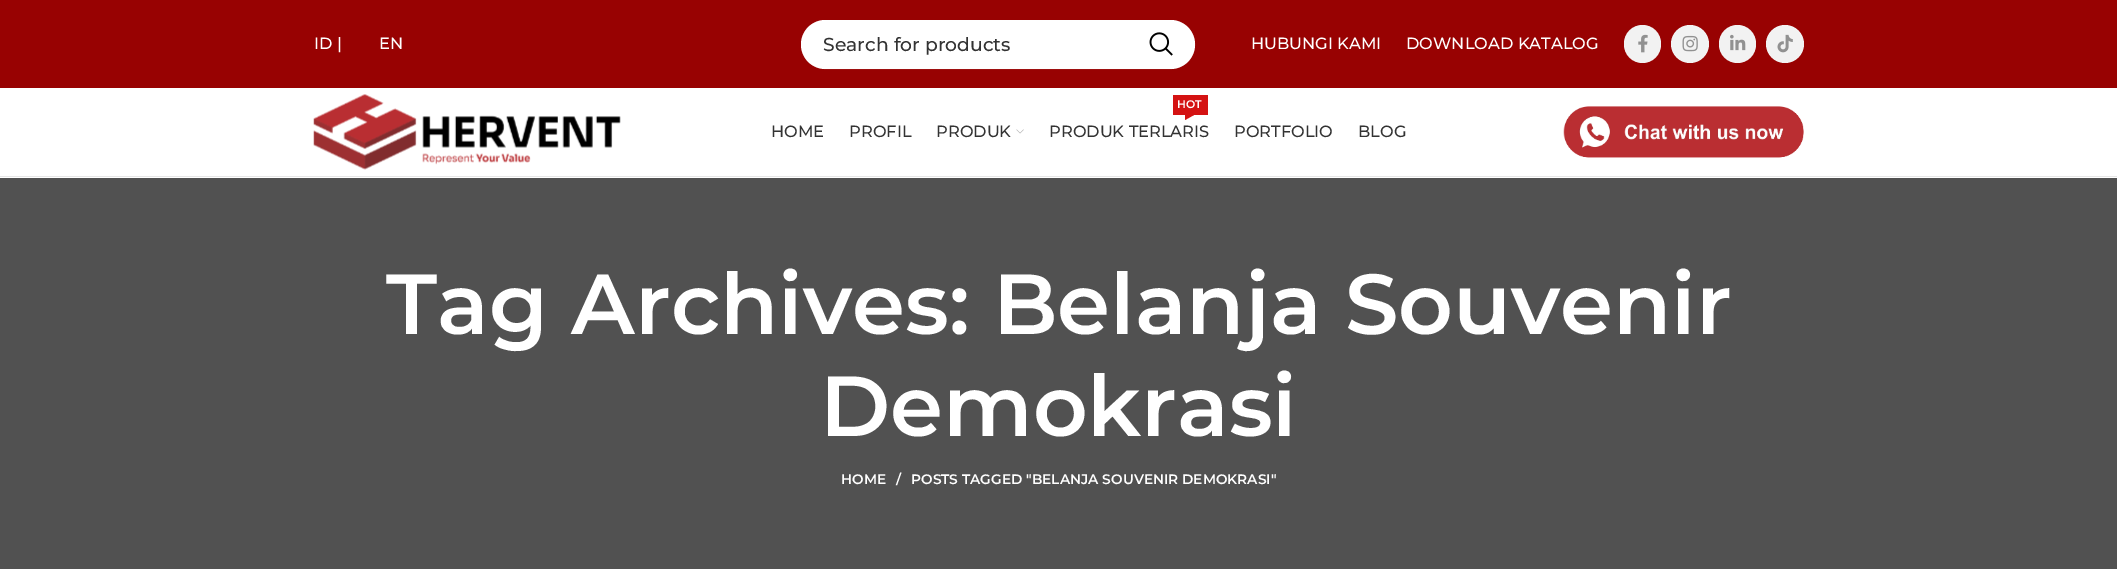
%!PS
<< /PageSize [2117 569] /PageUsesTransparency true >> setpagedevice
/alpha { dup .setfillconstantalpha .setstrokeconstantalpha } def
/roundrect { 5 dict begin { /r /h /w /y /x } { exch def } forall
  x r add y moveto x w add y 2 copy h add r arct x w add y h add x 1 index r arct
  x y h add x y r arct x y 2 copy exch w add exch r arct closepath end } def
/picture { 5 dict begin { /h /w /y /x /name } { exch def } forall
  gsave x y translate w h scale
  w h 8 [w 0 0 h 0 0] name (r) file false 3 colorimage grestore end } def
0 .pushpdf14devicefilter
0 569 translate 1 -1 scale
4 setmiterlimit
1 setgray
0 0 2117 569 rectfill
0.596 0.008 0.008 setrgbcolor
0 0 2117 88 rectfill
/Montserrat-Medium [16.25 0 0 -16.25 0 0] selectfont
1 setgray
314 49 moveto (ID |) show
379 49 moveto (EN) show
801 20 394 49 24.5 roundrect fill
0.2 alpha
3 setlinewidth
802.5 21.5 391 46 23 roundrect stroke
/Montserrat-Medium [18.75 0 0 -18.75 0 0] selectfont
1 alpha
0.2 setgray
823 51 moveto (Search for products) show
(img1.rgb) 1149 32 24 24 picture
/Montserrat-Medium [16.25 0 0 -16.25 0 0] selectfont
1 setgray
1251 49 moveto (HUBUNGI KAMI) show
1406 49 moveto (DOWNLOAD KATALOG) show
0.949 setgray
1624 25 37 38 18.5 roundrect fill
(img2.rgb) 1638 34 10 19 picture
newpath 1690 44 19 0 360 arc closepath fill
(img3.rgb) 1682 35 16 17 picture
1719 25 37 38 18.5 roundrect fill
(img4.rgb) 1730 34 16 17 picture
newpath 1785 44 19 0 360 arc closepath fill
(img5.rgb) 1777 34 16 19 picture
0.902 setgray
0 176 2117 1 rectfill
(img6.rgb) 313 94 308 76 picture
0.2 setgray
771 137 moveto (HOME) show
849 137 moveto (PROFIL) show
936 137 moveto (PRODUK) show
(img7.rgb) 1016 129 8 5 picture
0.831 0.071 0.071 setrgbcolor
1173 95 35 20 rectfill
/Montserrat-SemiBold [11 0 0 -11 0 0] selectfont
1 setgray
1177 108 moveto (HOT) show
0.831 0.071 0.071 setrgbcolor
newpath 1185 115 moveto 1194 115 lineto 1185 120 lineto closepath fill
/Montserrat-Medium [16.25 0 0 -16.25 0 0] selectfont
0.2 setgray
1049 137 moveto (PRODUK TERLARIS) show
1234 137 moveto (PORTFOLIO) show
1358 137 moveto (BLOG) show
(img8.rgb) 1563 106 241 52 picture
0.318 setgray
0 178 2117 391 rectfill
/Montserrat-SemiBold [85 0 0 -85 0 0] selectfont
1 setgray
386 334 moveto (Tag Archives: Belanja Souvenir) show
820 436 moveto (Demokrasi) show
/Montserrat-SemiBold [13.75 0 0 -13.75 0 0] selectfont
841 484 moveto (HOME) show
896 484 moveto (/) show
911 484 moveto (POSTS TAGGED "BELANJA SOUVENIR DEMOKRASI") show
.poppdf14devicefilter showpage
